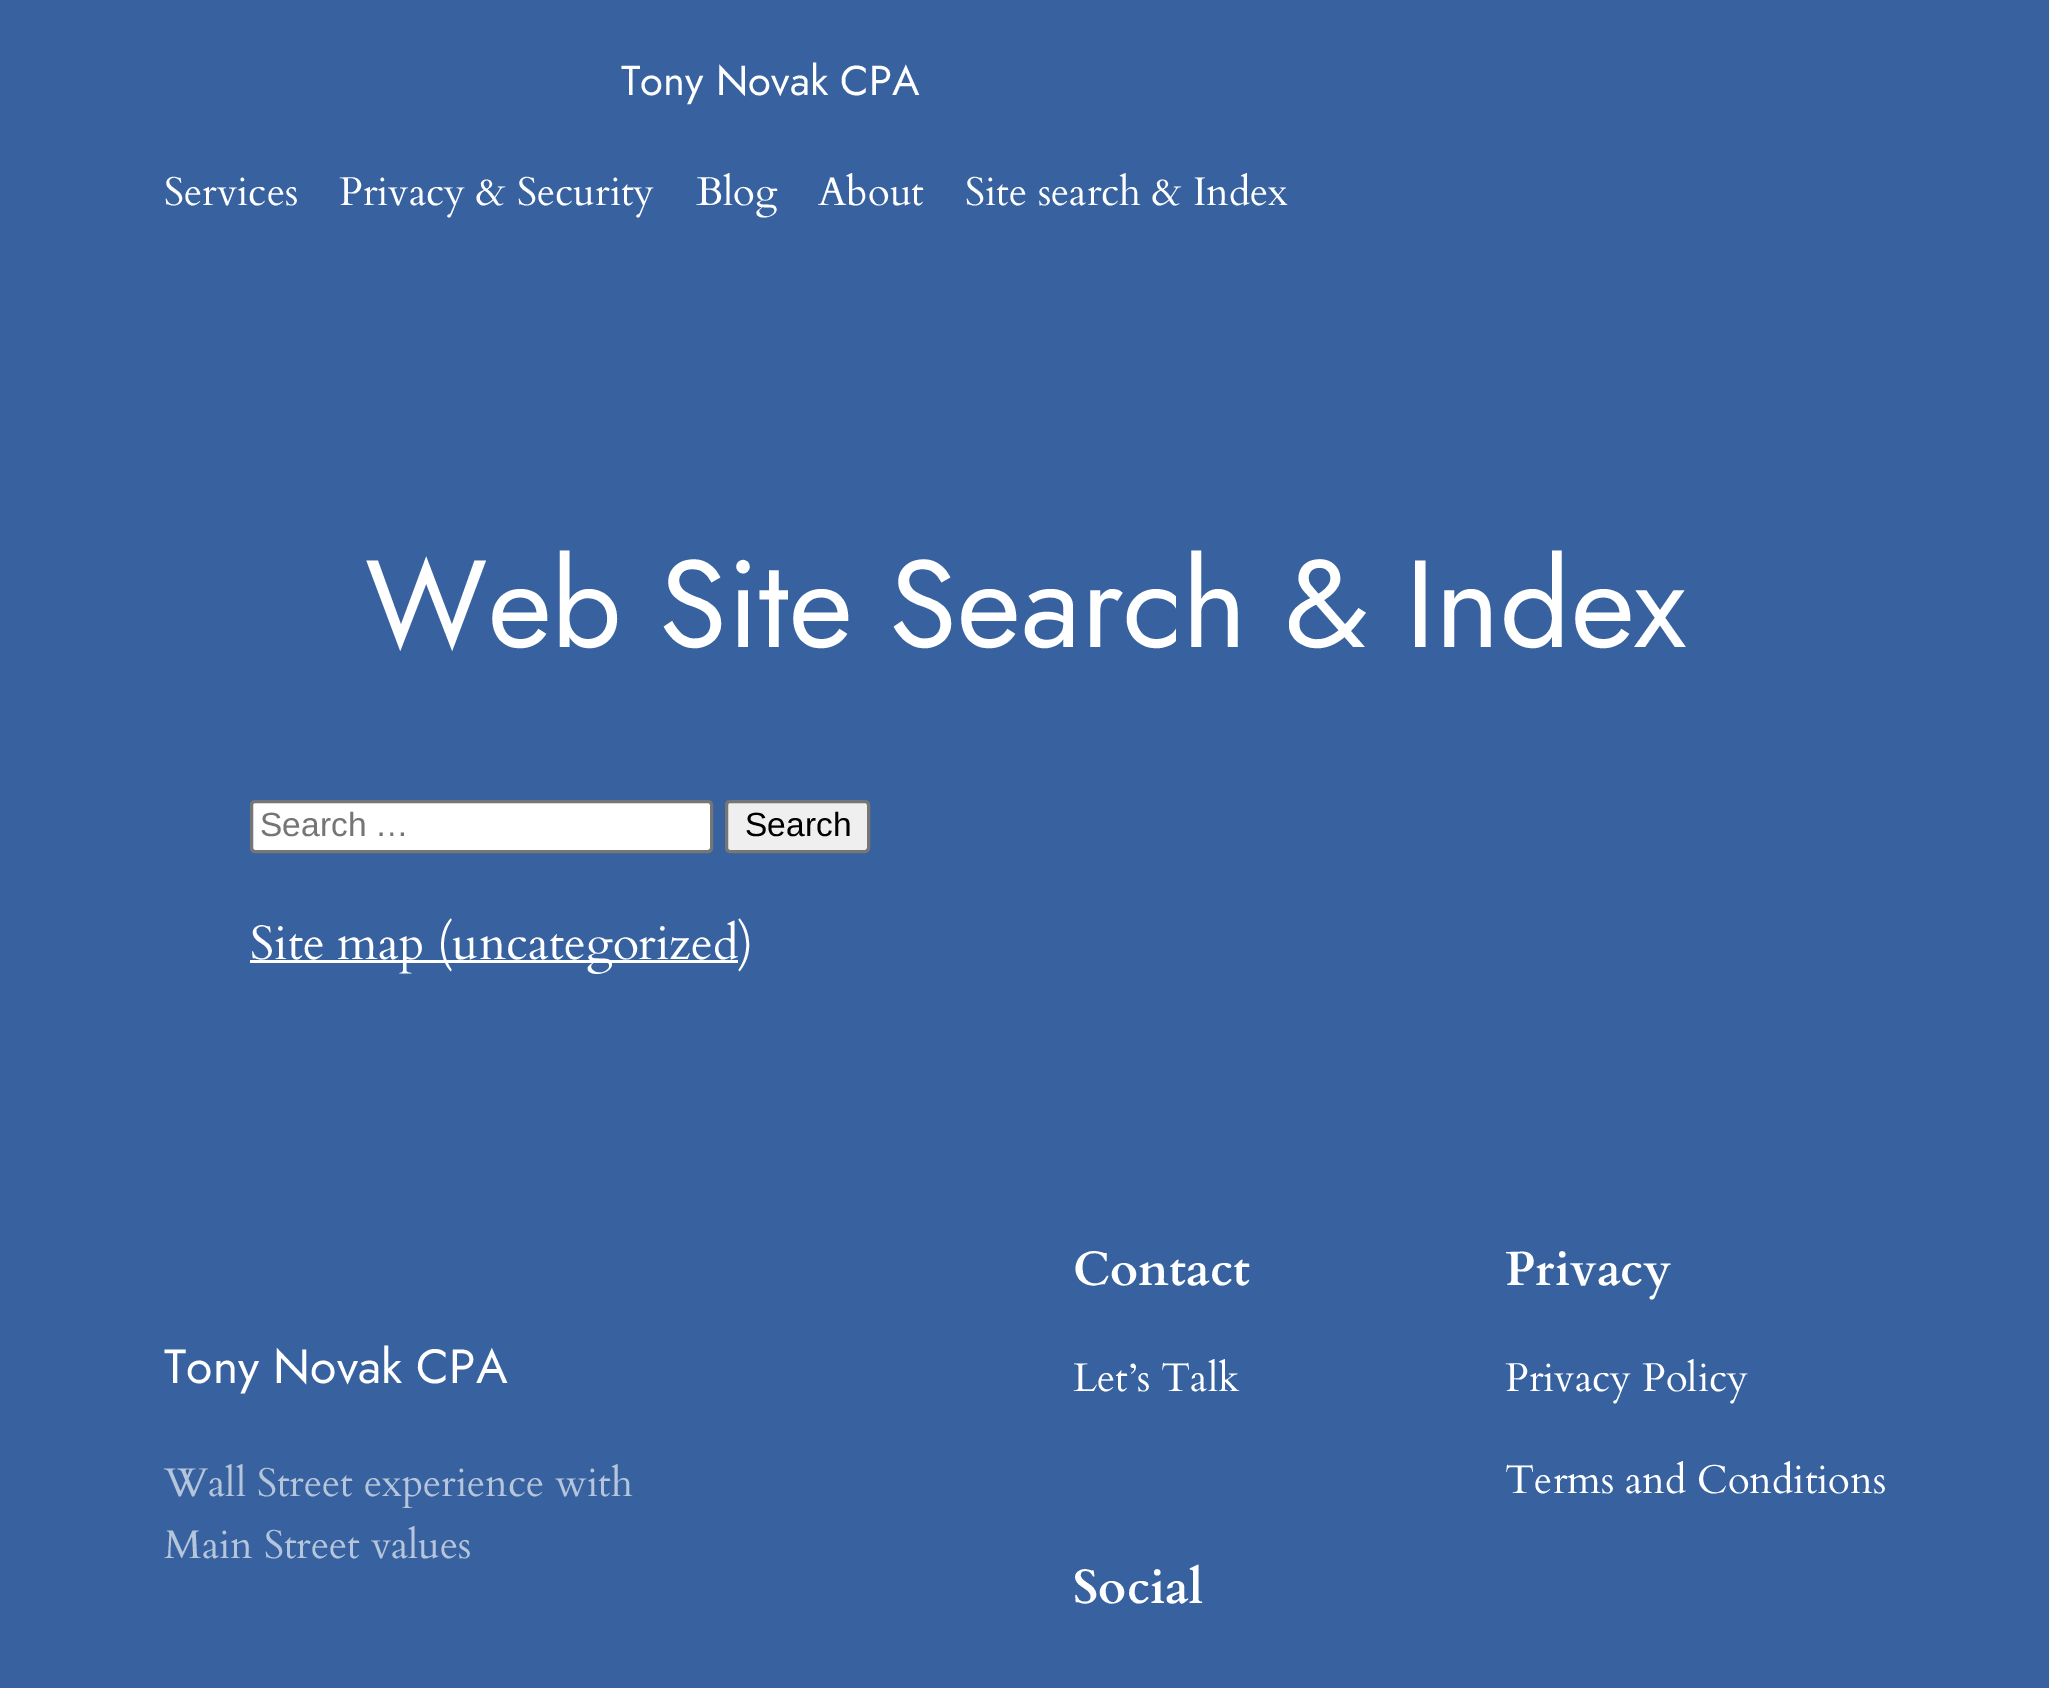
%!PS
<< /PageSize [2049 1688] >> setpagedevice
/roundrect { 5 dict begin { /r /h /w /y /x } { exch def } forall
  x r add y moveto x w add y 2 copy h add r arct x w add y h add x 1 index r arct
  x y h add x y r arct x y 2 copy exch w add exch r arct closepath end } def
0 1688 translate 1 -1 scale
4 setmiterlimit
0.22 0.384 0.624 setrgbcolor
0 0 2049 1688 rectfill
/Jost-Regular [41.75 0 0 -41.75 0 0] selectfont
1 setgray
621 95 moveto (Tony Novak CPA) show
/Cardo-Regular [40 0 0 -40 0 0] selectfont
164 205 moveto (Services) show
339 205 moveto (Privacy & Security) show
696 205 moveto (Blog) show
818 205 moveto (About) show
965 205 moveto (Site search & Index) show
/Jost-Regular [123.75 0 0 -123.75 0 0] selectfont
365 647 moveto (Web Site Search & Index) show
251.5 801.5 460 50 3.5 roundrect gsave fill grestore
0.463 setgray
3 setlinewidth
stroke
/LiberationSans-Regular [33.5 0 0 -33.5 0 0] selectfont
0.459 setgray
260 836 moveto (Search …) show
0.937 setgray
726.5 801.5 142 50 3.5 roundrect gsave fill grestore
0.463 setgray
stroke
0 setgray
745 836 moveto (Search) show
1 setgray
250 960 488 3 rectfill
/Cardo-Regular [48 0 0 -48 0 0] selectfont
250 959 moveto (Site map \(uncategorized) show
738 959 moveto (\)) show
/Jost-Regular [48 0 0 -48 0 0] selectfont
164 1383 moveto (Tony Novak CPA) show
/Cardo-Regular [40 0 0 -40 0 0] selectfont
0.71 0.773 0.859 setrgbcolor
164 1496 moveto (Wall Street experience with) show
164 1558 moveto (Main Street values) show
/Cardo-Bold [48 0 0 -48 0 0] selectfont
1 setgray
1073 1285 moveto (Contact) show
/Cardo-Regular [40 0 0 -40 0 0] selectfont
1073 1391 moveto (Let’s Talk) show
/Cardo-Bold [48 0 0 -48 0 0] selectfont
1505 1285 moveto (Privacy) show
/Cardo-Regular [40 0 0 -40 0 0] selectfont
1505 1391 moveto (Privacy Policy) show
1505 1493 moveto (Terms and Conditions) show
/Cardo-Bold [48 0 0 -48 0 0] selectfont
1073 1603 moveto (Social) show
showpage
